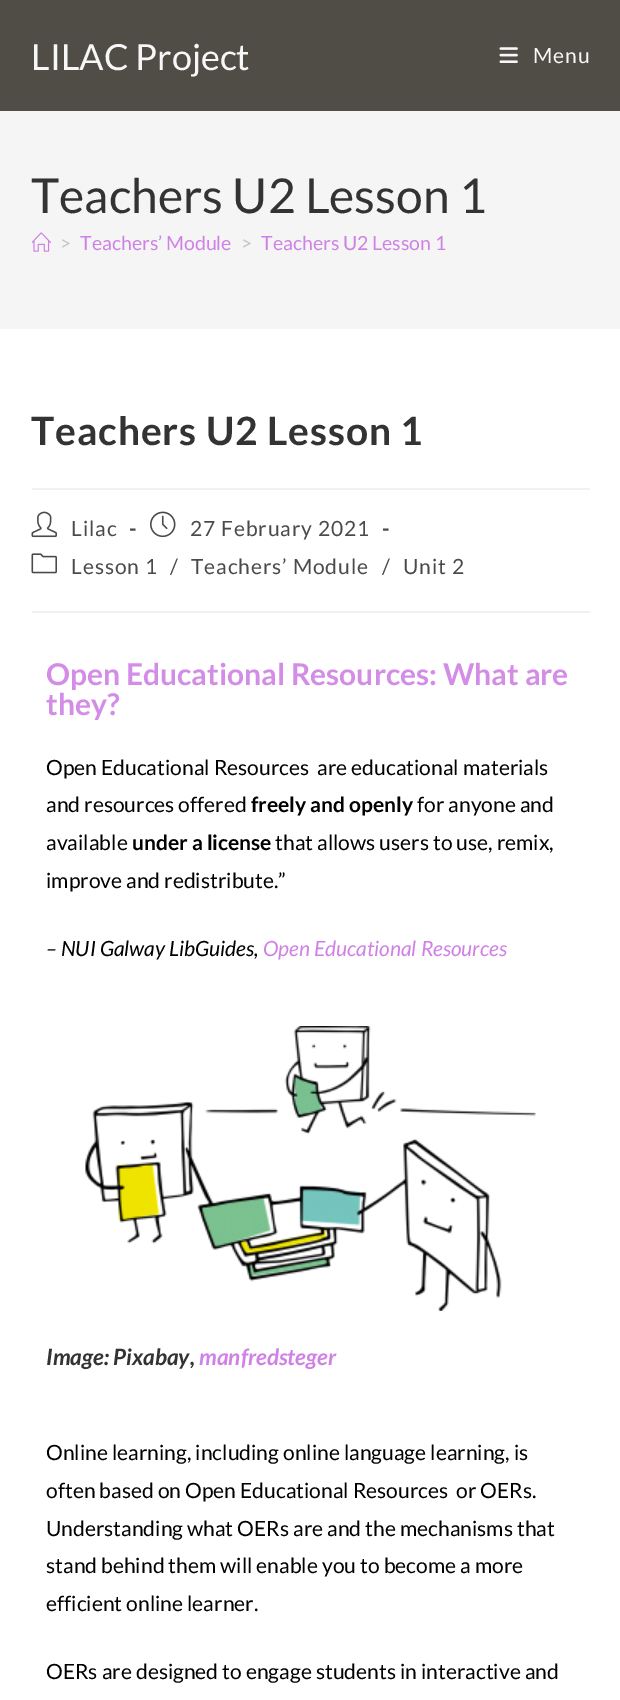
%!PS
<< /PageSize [620 1700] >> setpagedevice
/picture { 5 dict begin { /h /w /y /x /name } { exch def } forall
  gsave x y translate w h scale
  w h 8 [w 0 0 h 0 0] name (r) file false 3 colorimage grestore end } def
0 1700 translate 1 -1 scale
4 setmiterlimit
1 setgray
0 0 620 1700 rectfill
0.31 0.302 0.271 setrgbcolor
0 0 620 111 rectfill
/Lato-Regular [36 0 0 -36 0 0] selectfont
0.969 setgray
31 70 moveto (LILAC Project) show
(img1.rgb) 499 47 19 16 picture
/Lato-Regular [21 0 0 -21 0 0] selectfont
533 63 moveto 0.9 0 (Menu) ashow
0.961 setgray
0 111 620 218 rectfill
/Lato-Regular [48 0 0 -48 0 0] selectfont
0.2 setgray
31 213 moveto (Teachers U2 Lesson 1) show
(img2.rgb) 32 232 19 20 picture
/Lato-Regular [19.5 0 0 -19.5 0 0] selectfont
0.776 setgray
60 250 moveto (>) show
0.816 0.506 0.898 setrgbcolor
80 250 moveto (Teachers’ Module) show
0.776 setgray
241 250 moveto (>) show
0.816 0.506 0.898 setrgbcolor
261 250 moveto (Teachers U2 Lesson 1) show
0.945 setgray
32 488 558 2 rectfill
/Lato-Bold [39 0 0 -39 0 0] selectfont
0.2 setgray
31 445 moveto 0.9 0 (Teachers U2 Lesson 1) ashow
0.945 setgray
32 611 558 2 rectfill
(img3.rgb) 31 511 26 27 picture
/Lato-Regular [21 0 0 -21 0 0] selectfont
0.29 setgray
71 536 moveto 0.9 0 (Lilac) ashow
/Lato-Bold [21 0 0 -21 0 0] selectfont
129 536 moveto 0.9 0 (-) ashow
(img4.rgb) 150 511 26 27 picture
/Lato-Regular [21 0 0 -21 0 0] selectfont
190 536 moveto 0.9 0 (27 February 2021) ashow
/Lato-Bold [21 0 0 -21 0 0] selectfont
382 536 moveto 0.9 0 (-) ashow
(img5.rgb) 31 553 26 21 picture
/Lato-Regular [21 0 0 -21 0 0] selectfont
71 574 moveto 0.9 0 (Lesson 1) ashow
170 574 moveto 0.9 0 (/) ashow
191 574 moveto 0.9 0 (Teachers’ Module) ashow
382 574 moveto 0.9 0 (/) ashow
403 574 moveto 0.9 0 (Unit 2) ashow
/Lato-Bold [30 0 0 -30 0 0] selectfont
0.831 0.553 0.906 setrgbcolor
46 685 moveto (Open Educational Resources: What are) show
46 715 moveto (they?) show
/Lato-Regular [21 0 0 -21 0 0] selectfont
0 setgray
46 775 moveto (Open Educational Resources  are educational materials) show
46 812 moveto (and resources offered) show
/Lato-Bold [21 0 0 -21 0 0] selectfont
251 812 moveto (freely and openly) show
/Lato-Regular [21 0 0 -21 0 0] selectfont
417 812 moveto (for anyone and) show
46 850 moveto (available) show
/Lato-Bold [21 0 0 -21 0 0] selectfont
132 850 moveto (under a license) show
/Lato-Regular [21 0 0 -21 0 0] selectfont
275 850 moveto (that allows users to use, remix,) show
46 888 moveto (improve and redistribute.”) show
/Lato-Italic [21 0 0 -21 0 0] selectfont
46 956 moveto (– NUI Galway LibGuides,) show
0.816 0.506 0.898 setrgbcolor
263 956 moveto (Open Educational Resources) show
(img6.rgb) 85 1026 451 285 picture
/Lato-BoldItalic [22.5 0 0 -22.5 0 0] selectfont
0.2 setgray
46 1365 moveto (Image: Pixabay,) show
0.816 0.506 0.898 setrgbcolor
199 1365 moveto (manfredsteger) show
/Lato-Regular [21 0 0 -21 0 0] selectfont
0 setgray
46 1460 moveto (Online learning, including online language learning, is) show
46 1498 moveto (often based on Open Educational Resources  or OERs.) show
46 1536 moveto (Understanding what OERs are and the mechanisms that) show
46 1573 moveto (stand behind them will enable you to become a more) show
46 1611 moveto (efficient online learner.) show
46 1679 moveto (OERs are designed to engage students in interactive and) show
showpage
